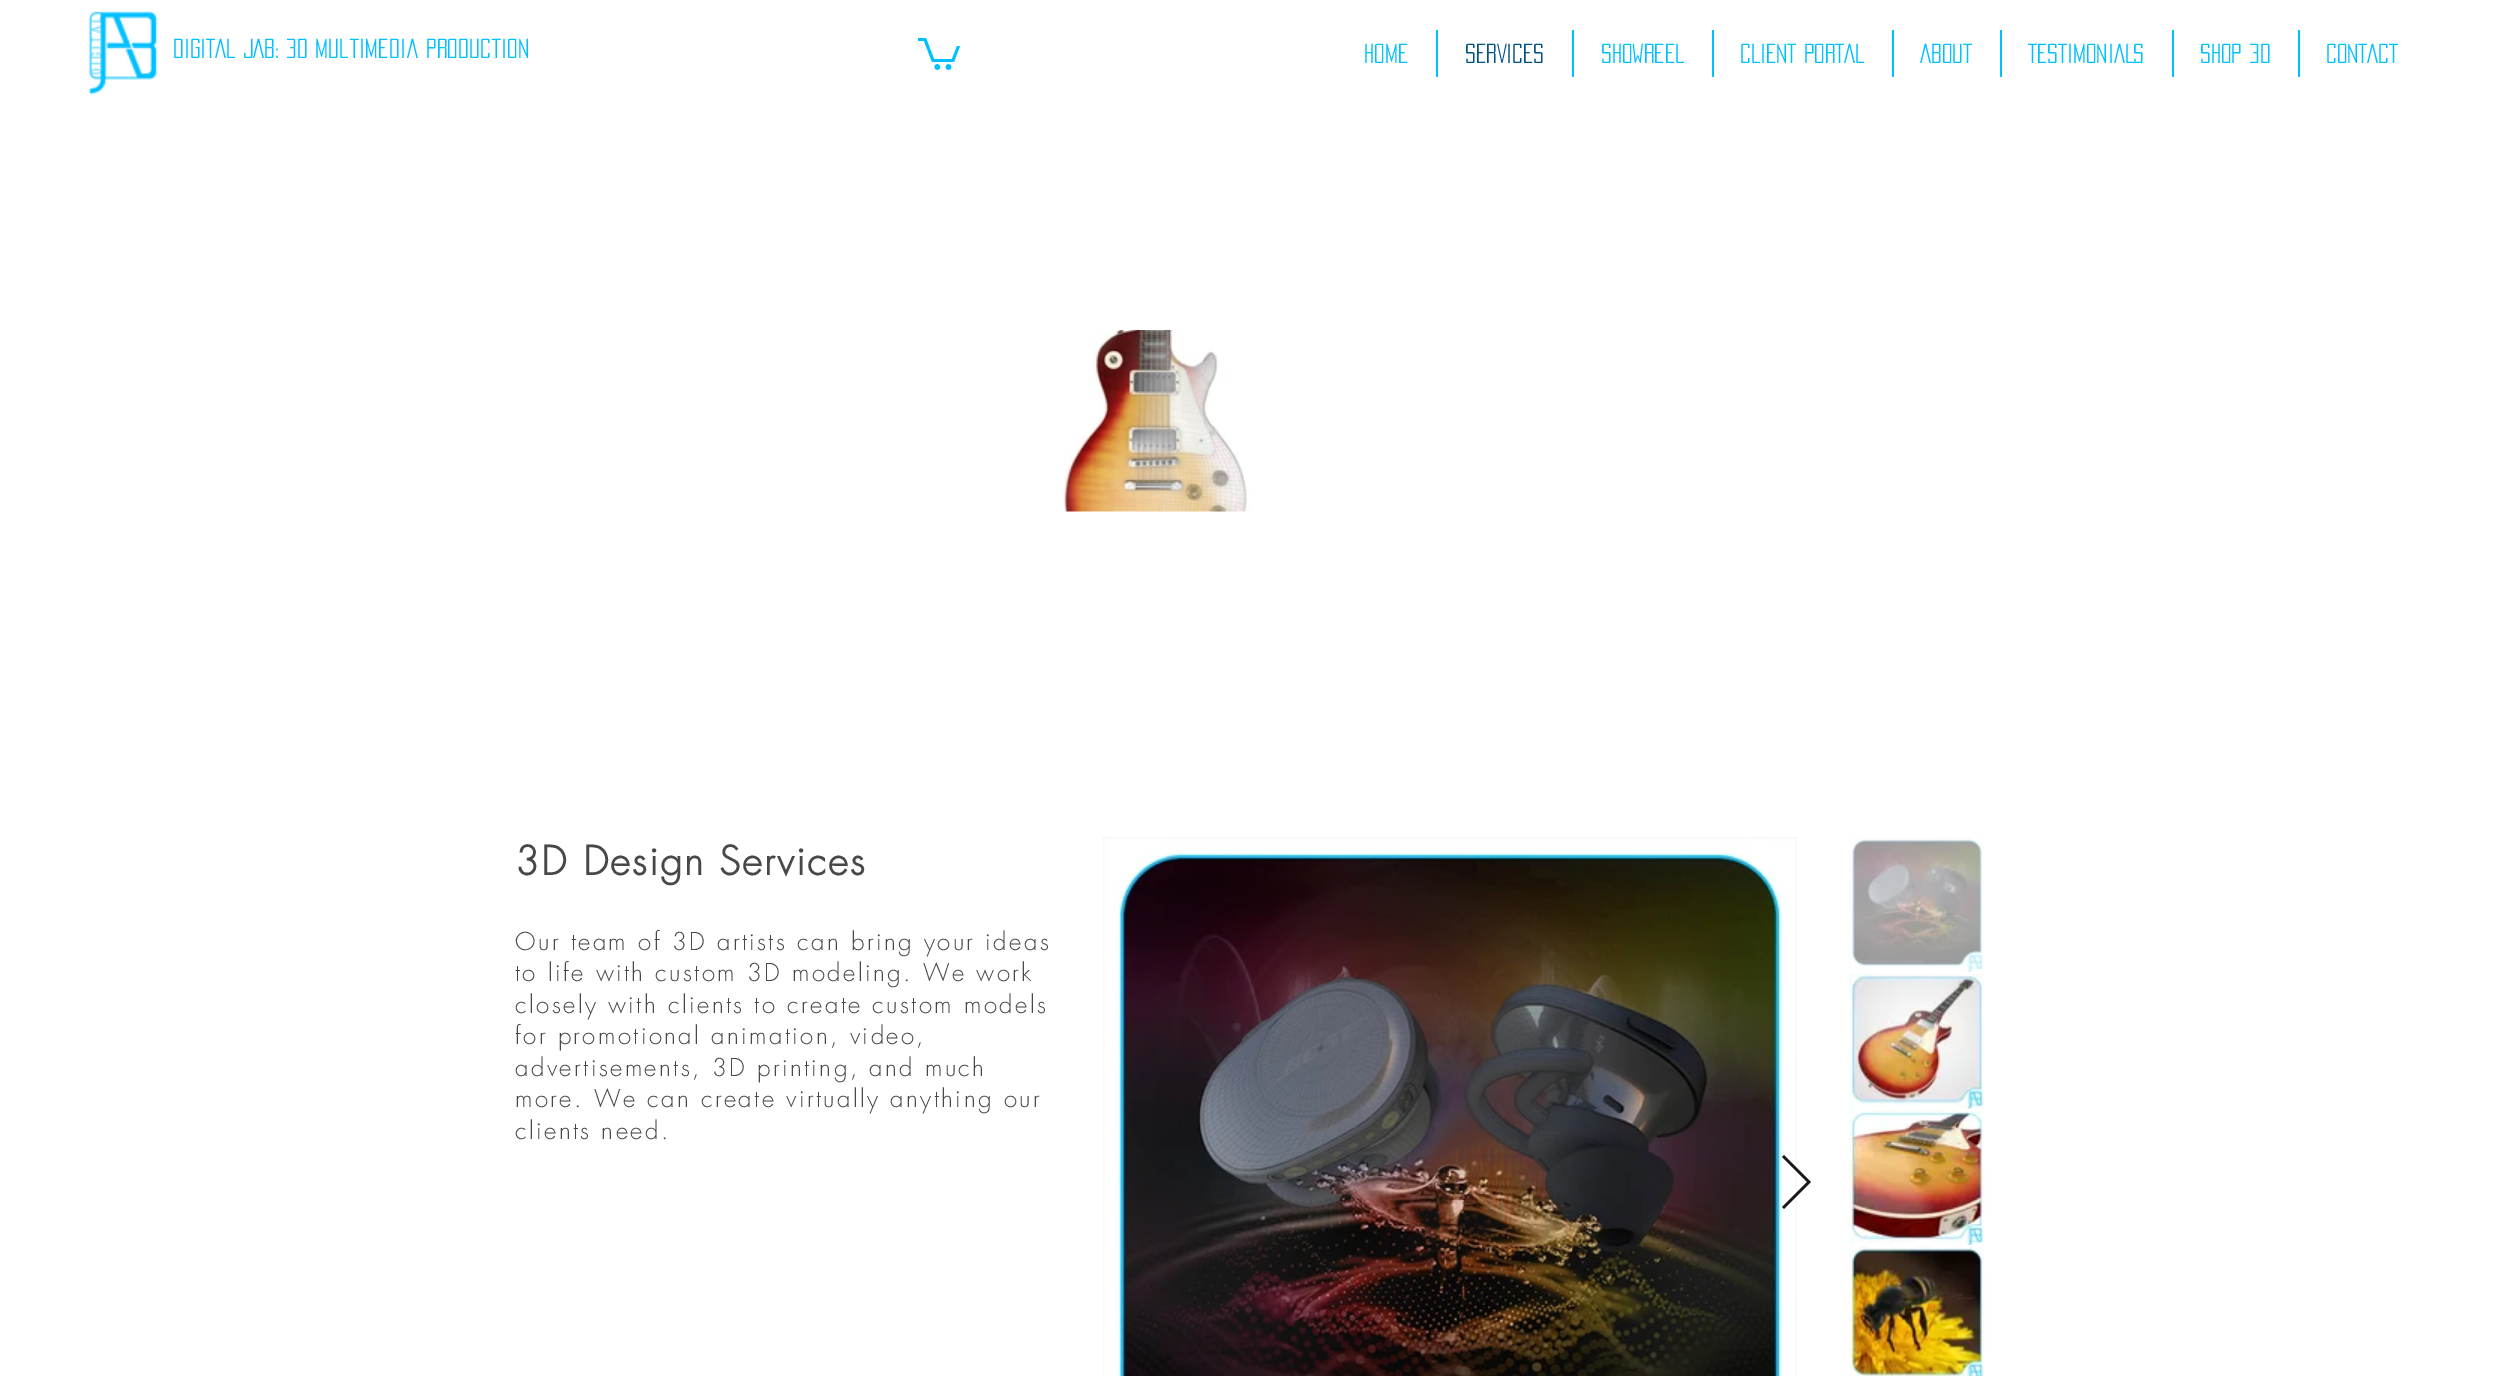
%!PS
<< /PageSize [2498 1376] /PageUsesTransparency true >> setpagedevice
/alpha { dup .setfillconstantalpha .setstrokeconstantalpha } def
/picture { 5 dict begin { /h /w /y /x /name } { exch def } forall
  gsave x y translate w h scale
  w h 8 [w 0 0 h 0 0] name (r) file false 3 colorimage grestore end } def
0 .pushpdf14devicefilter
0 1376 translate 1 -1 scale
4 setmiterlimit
1 setgray
0 0 2498 1376 rectfill
(img1.rgb) 88 11 70 84 picture
/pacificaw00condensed-Regular [24 0 0 -24 0 0] selectfont
0 0.753 1 setrgbcolor
173 58 moveto (DIGITAL JAB: 3D Multimedia Production) show
newpath 960 46 moveto 954 62 lineto 932 62 lineto 924 41 lineto 918 41 lineto 918 38 lineto 926 38 lineto 934 59 lineto 952 59 lineto 957 46 lineto fill
newpath 948.5 67 2.8 0 360 arc closepath fill
newpath 937.3 67 2.8 0 360 arc closepath fill
1364 63 moveto (HOME) show
1436 30 2 47 rectfill
0.016 0.318 0.518 setrgbcolor
1465 63 moveto (SERVICES) show
0 0.753 1 setrgbcolor
1572 30 2 47 rectfill
1601 63 moveto (SHOWREEL) show
1712 30 2 47 rectfill
1740 63 moveto (CLIENT PORTAL) show
1892 30 2 47 rectfill
1920 63 moveto (ABOUT) show
2000 30 2 47 rectfill
2028 63 moveto (TESTIMONIALS) show
2172 30 2 47 rectfill
2200 63 moveto (SHOP 3D) show
2298 30 2 47 rectfill
2326 63 moveto (CONTACT) show
(img2.rgb) 1063 330 187 182 picture
/futura-Bold [39 0 0 -39 0 0] selectfont
0.29 0.282 0.275 setrgbcolor
515 875 moveto 2 0 (3D Design Services) ashow
/futura-Light [24 0 0 -24 0 0] selectfont
515 950 moveto 2.4 0 (Our team of 3D artists can bring your ideas) ashow
515 981 moveto 2.4 0 (to life with custom 3D modeling. We work) ashow
515 1013 moveto 2.4 0 (closely with clients to create custom models) ashow
515 1044 moveto 2.4 0 (for promotional animation, video,) ashow
515 1076 moveto 2.4 0 (advertisements, 3D printing, and much) ashow
515 1107 moveto 2.4 0 (more. We can create virtually anything our) ashow
515 1139 moveto 2.4 0 (clients need.) ashow
(img3.rgb) 1103 837 694 539 picture
0.9 alpha
0 setgray
newpath 1782 1157 moveto 1784 1155 lineto 1811 1182 lineto 1784 1209 lineto 1782 1207 lineto 1807 1182 lineto closepath fill
1 alpha
(img4.rgb) 1849 837 136 135 picture
(img5.rgb) 1849 974 135 135 picture
(img6.rgb) 1849 1110 136 135 picture
(img7.rgb) 1849 1246 136 130 picture
.poppdf14devicefilter showpage
